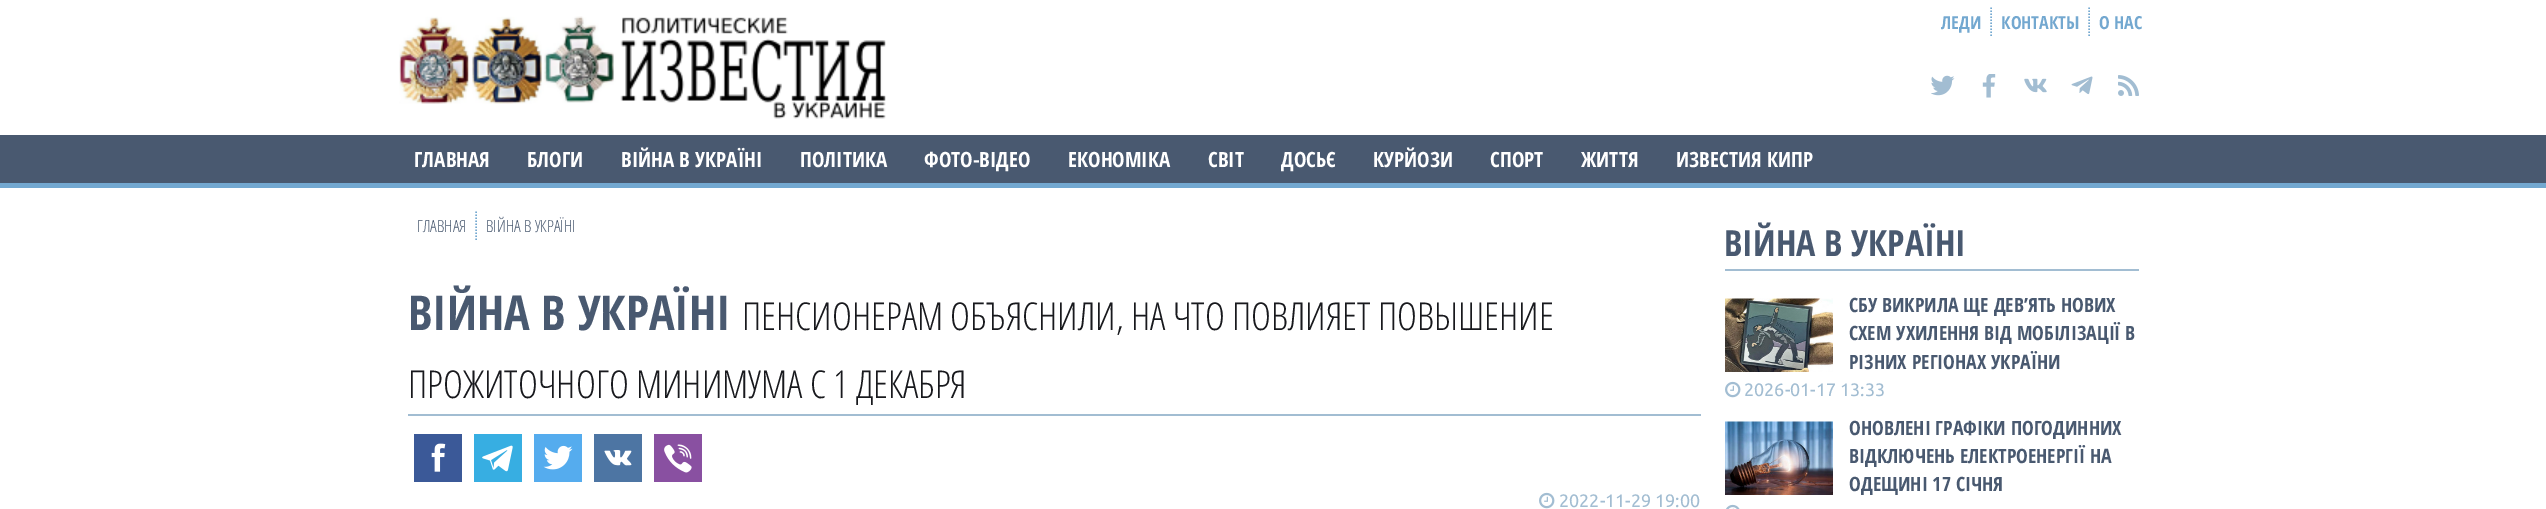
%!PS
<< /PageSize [2546 509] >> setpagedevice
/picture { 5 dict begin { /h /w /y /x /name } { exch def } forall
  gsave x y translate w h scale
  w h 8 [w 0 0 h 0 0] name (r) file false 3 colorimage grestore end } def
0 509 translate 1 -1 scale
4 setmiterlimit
1 setgray
0 0 2546 509 rectfill
(img1.rgb) 399 16 487 103 picture
0.451 0.659 0.816 setrgbcolor
1.5 setlinewidth
[1.5 1.5] 0 setdash
newpath 1991 7.5 moveto 1991 37.5 lineto stroke
/OpenSansCondensed-Bold [18 0 0 -18 0 0] selectfont
1941 29 moveto (ЛЕДИ) show
newpath 2089 7.5 moveto 2089 37.5 lineto stroke
2001 29 moveto (КОНТАКТЫ) show
2099 29 moveto (О НАС) show
(img2.rgb) 1931 75 24 21 picture
(img3.rgb) 1982 74 14 24 picture
(img4.rgb) 2024 78 23 15 picture
(img5.rgb) 2071 76 22 19 picture
(img6.rgb) 2118 75 21 21 picture
0.286 0.349 0.439 setrgbcolor
0 135 2546 48 rectfill
0.451 0.659 0.816 setrgbcolor
0 183 2546 5 rectfill
/OpenSansCondensed-Bold [21 0 0 -21 0 0] selectfont
1 setgray
414 167 moveto (ГЛАВНАЯ) show
527 167 moveto (БЛОГИ) show
621 167 moveto (ВІЙНА В УКРАЇНІ) show
800 167 moveto (ПОЛІТИКА) show
924 167 moveto (ФОТО-ВІДЕО) show
1068 167 moveto (ЕКОНОМІКА) show
1208 167 moveto (СВІТ) show
1281 167 moveto (ДОСЬЄ) show
1373 167 moveto (КУРЙОЗИ) show
1490 167 moveto (СПОРТ) show
1581 167 moveto (ЖИТТЯ) show
1676 167 moveto (ИЗВЕСТИЯ КИПР) show
0.451 0.659 0.816 setrgbcolor
newpath 476 211.5 moveto 476 241.5 lineto stroke
/OpenSansCondensed-Light [16.75 0 0 -16.75 0 0] selectfont
0.286 0.349 0.439 setrgbcolor
417 232 moveto (ГЛАВНАЯ) show
486 232 moveto (ВІЙНА В УКРАЇНІ) show
0.635 0.741 0.824 setrgbcolor
408 414 1293 2 rectfill
/OpenSansCondensed-Bold [48 0 0 -48 0 0] selectfont
0.286 0.349 0.439 setrgbcolor
408 330 moveto (ВІЙНА В УКРАЇНІ) show
/OpenSansCondensed-Light [38.4 0 0 -38.4 0 0] selectfont
0.094 0.098 0.114 setrgbcolor
742 330 moveto (ПЕНСИОНЕРАМ ОБЪЯСНИЛИ, НА ЧТО ПОВЛИЯЕТ ПОВЫШЕНИЕ) show
408 398 moveto (ПРОЖИТОЧНОГО МИНИМУМА С 1 ДЕКАБРЯ) show
0.231 0.349 0.596 setrgbcolor
414 434 48 48 rectfill
(img7.rgb) 431 443 15 29 picture
0.216 0.682 0.886 setrgbcolor
474 434 48 48 rectfill
(img8.rgb) 482 445 31 27 picture
0.333 0.675 0.933 setrgbcolor
534 434 48 48 rectfill
(img9.rgb) 543 445 30 25 picture
0.302 0.459 0.639 setrgbcolor
594 434 48 48 rectfill
(img10.rgb) 604 450 28 16 picture
0.537 0.314 0.631 setrgbcolor
654 434 48 48 rectfill
(img11.rgb) 664 444 28 29 picture
(img12.rgb) 1539 492 16 17 picture
/Ubuntu-Regular [18 0 0 -18 0 0] selectfont
0.635 0.741 0.824 setrgbcolor
1559 507 moveto (2022-11-29 19:00) show
1725 269 414 2 rectfill
/OpenSansCondensed-Bold [36 0 0 -36 0 0] selectfont
0.286 0.349 0.439 setrgbcolor
1724 256 moveto (ВІЙНА В УКРАЇНІ) show
(img13.rgb) 1725 298 108 74 picture
/OpenSansCondensed-Bold [19.75 0 0 -19.75 0 0] selectfont
1849 312 moveto (СБУ ВИКРИЛА ЩЕ ДЕВ’ЯТЬ НОВИХ) show
1849 340 moveto (СХЕМ УХИЛЕННЯ ВІД МОБІЛІЗАЦІЇ В) show
1849 369 moveto (РІЗНИХ РЕГІОНАХ УКРАЇНИ) show
(img12.rgb) 1725 381 16 17 picture
/Ubuntu-Regular [18 0 0 -18 0 0] selectfont
0.635 0.741 0.824 setrgbcolor
1744 396 moveto (2026-01-17 13:33) show
(img14.rgb) 1725 421 108 74 picture
/OpenSansCondensed-Bold [19.75 0 0 -19.75 0 0] selectfont
0.286 0.349 0.439 setrgbcolor
1849 435 moveto (ОНОВЛЕНІ ГРАФІКИ ПОГОДИННИХ) show
1849 463 moveto (ВІДКЛЮЧЕНЬ ЕЛЕКТРОЕНЕРГІЇ НА) show
1849 491 moveto (ОДЕЩИНІ 17 СІЧНЯ) show
(img15.rgb) 1726 504 14 5 picture
showpage
